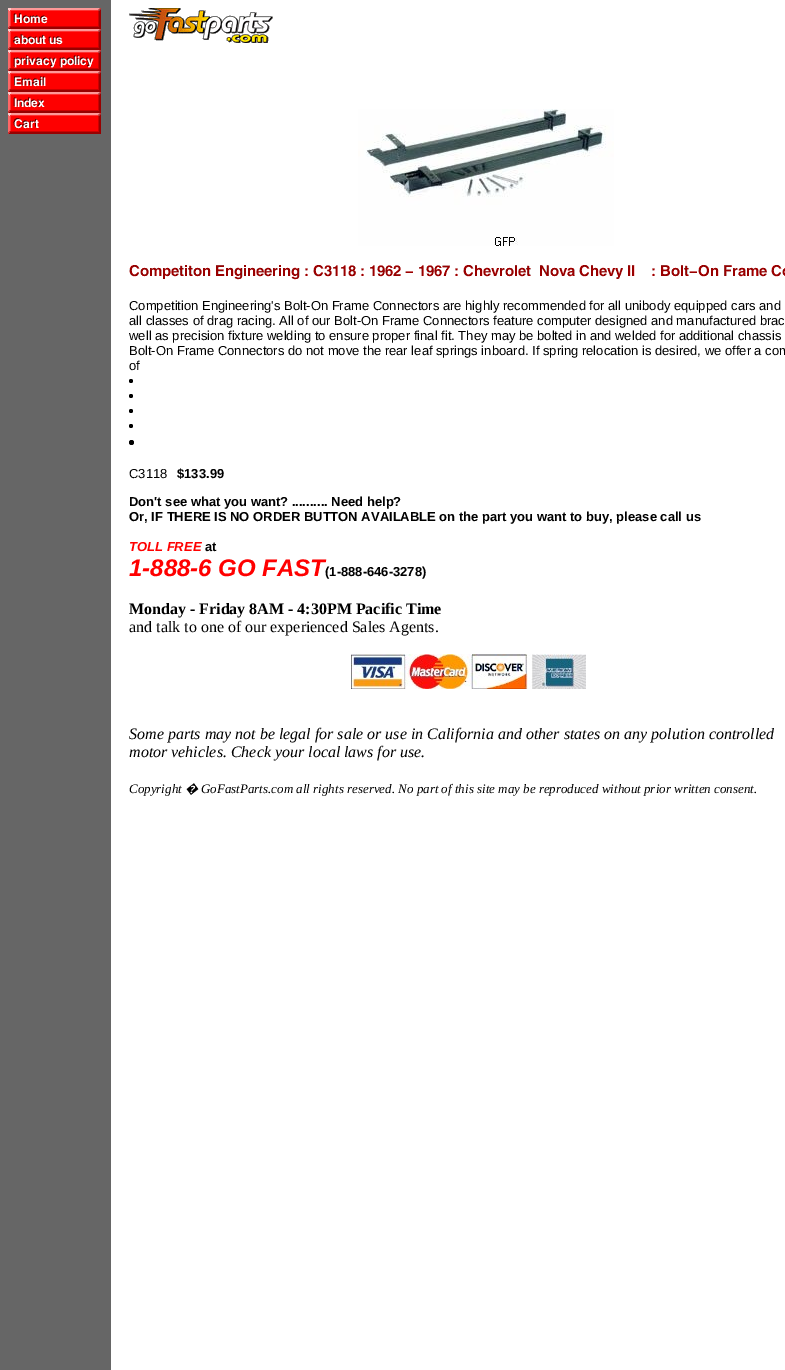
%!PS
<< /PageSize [785 1370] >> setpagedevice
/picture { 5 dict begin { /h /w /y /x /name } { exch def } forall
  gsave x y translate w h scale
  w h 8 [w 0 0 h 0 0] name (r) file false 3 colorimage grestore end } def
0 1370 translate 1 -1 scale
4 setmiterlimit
1 setgray
0 0 785 1370 rectfill
0.4 setgray
0 0 111 1370 rectfill
(img1.rgb) 8 8 93 126 picture
(img2.rgb) 129 8 144 35 picture
(img3.rgb) 358 109 256 137 picture
(img4.rgb) 129 265 656 15 picture
/LiberationSans-Regular [13 0 0 -13 0 0] selectfont
0 setgray
129 310 moveto (Competition Engineering's Bolt-On Frame Connectors are highly recommended for all unibody equipped cars and) show
129 325 moveto (all classes of drag racing. All of our Bolt-On Frame Connectors feature computer designed and manufactured brac) show
129 340 moveto (well as precision fixture welding to ensure proper final fit. They may be bolted in and welded for additional chassis) show
129 355 moveto (Bolt-On Frame Connectors do not move the rear leaf springs inboard. If spring relocation is desired, we offer a com) show
129 370 moveto (of) show
newpath 131 381 2 0 360 arc closepath fill
newpath 131 396 2 0 360 arc closepath fill
newpath 131 411 2 0 360 arc closepath fill
newpath 131 426 2 0 360 arc closepath fill
newpath 131.5 442.5 2.5 0 360 arc closepath fill
129 478 moveto (C3118) show
/LiberationSans-Bold [13 0 0 -13 0 0] selectfont
177 478 moveto ($133.99) show
129 506 moveto (Don't see what you want? .......... Need help?) show
129 521 moveto (Or, IF THERE IS NO ORDER BUTTON AVAILABLE on the part you want to buy, please call us) show
/LiberationSans-BoldItalic [13 0 0 -13 0 0] selectfont
1 0 0 setrgbcolor
129 551 moveto (TOLL FREE) show
/LiberationSans-Bold [13 0 0 -13 0 0] selectfont
0 setgray
205 551 moveto (at) show
/LiberationSans-BoldItalic [24 0 0 -24 0 0] selectfont
1 0 0 setrgbcolor
129 576 moveto (1-888-6 GO FAST) show
/LiberationSans-Bold [13 0 0 -13 0 0] selectfont
0 setgray
325 576 moveto (\(1-888-646-3278\)) show
/LiberationSerif-Bold [16 0 0 -16 0 0] selectfont
129 614 moveto (Monday - Friday 8AM - 4:30PM Pacific Time) show
/LiberationSerif-Regular [16 0 0 -16 0 0] selectfont
129 632 moveto (and talk to one of our experienced Sales Agents.) show
(img5.rgb) 351 654 235 35 picture
/LiberationSerif-Italic [16 0 0 -16 0 0] selectfont
129 739 moveto (Some parts may not be legal for sale or use in California and other states on any polution controlled) show
129 757 moveto (motor vehicles. Check your local laws for use.) show
/LiberationSerif-Italic [13 0 0 -13 0 0] selectfont
129 793 moveto (Copyright) show
/NotoSans-Italic [13 0 0 -13 0 0] selectfont
185 793 moveto (�) show
/LiberationSerif-Italic [13 0 0 -13 0 0] selectfont
201 793 moveto (GoFastParts.com all rights reserved. No part of this site may be reproduced without prior written consent.) show
showpage
